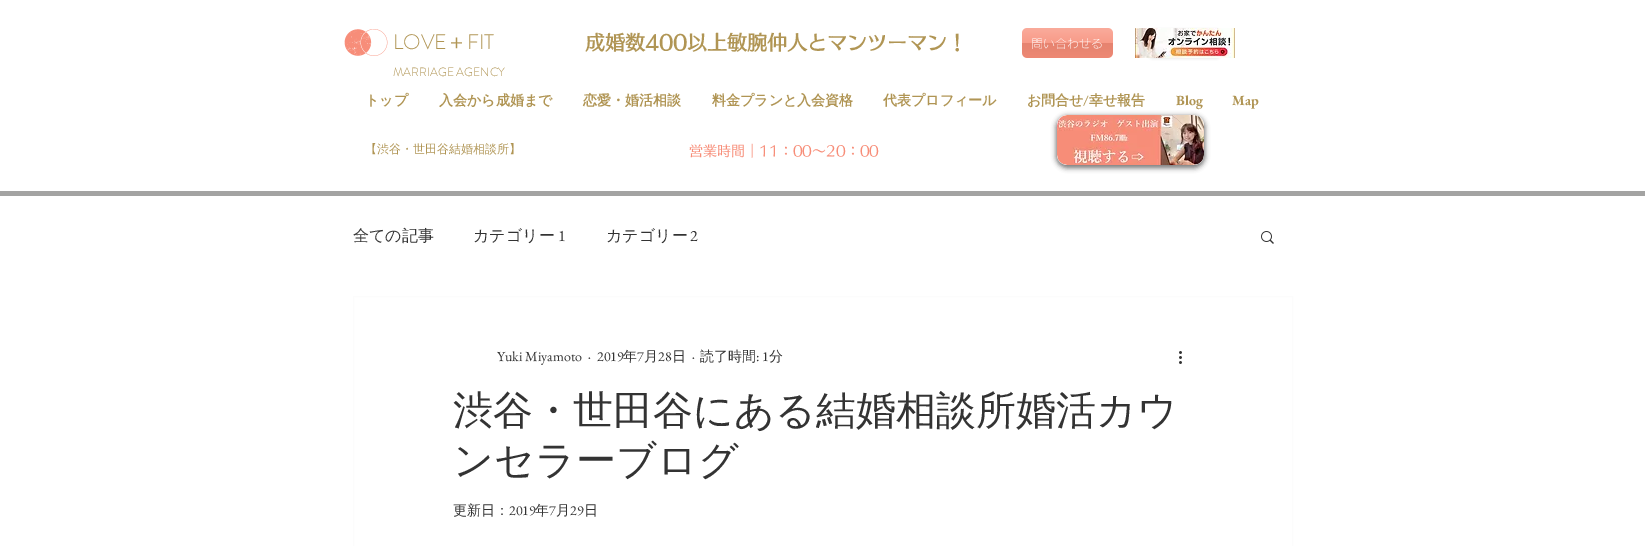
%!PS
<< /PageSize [1645 546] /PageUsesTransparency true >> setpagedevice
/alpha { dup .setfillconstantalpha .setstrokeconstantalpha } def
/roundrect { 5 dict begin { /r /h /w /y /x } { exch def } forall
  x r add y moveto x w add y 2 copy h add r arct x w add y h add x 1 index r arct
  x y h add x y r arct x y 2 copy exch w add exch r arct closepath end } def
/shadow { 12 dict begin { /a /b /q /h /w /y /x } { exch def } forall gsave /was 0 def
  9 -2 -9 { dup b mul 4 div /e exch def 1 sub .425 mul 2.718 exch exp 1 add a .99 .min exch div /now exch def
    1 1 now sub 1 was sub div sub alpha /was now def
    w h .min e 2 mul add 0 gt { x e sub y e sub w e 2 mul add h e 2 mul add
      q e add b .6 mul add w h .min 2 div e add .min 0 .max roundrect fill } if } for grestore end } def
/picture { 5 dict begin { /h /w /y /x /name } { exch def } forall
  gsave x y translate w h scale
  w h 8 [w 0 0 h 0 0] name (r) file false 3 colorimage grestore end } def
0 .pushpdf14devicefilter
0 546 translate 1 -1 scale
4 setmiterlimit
1 setgray
0 0 1645 546 rectfill
0 setgray
1152 33 65 22 0 2.5 0.53 shadow
(img1.rgb) 344 29 44 27 picture
/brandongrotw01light-Light [21 0 0 -21 0 0] selectfont
0.69 0.584 0.329 setrgbcolor
393 49 moveto (LOVE) show
/WenQuanYiZenHei-Medium [21 0 0 -21 0 0] selectfont
446 49 moveto (＋) show
/brandongrotw01light-Light [21 0 0 -21 0 0] selectfont
467 49 moveto (FIT) show
/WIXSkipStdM-Bold [20 0 0 -20 0 0] selectfont
585 50 moveto (成婚数400以上敏腕仲人とマンツーマン！) show
0.969 0.553 0.471 setrgbcolor
1022 28 91 30 5 roundrect fill
(img2.rgb) 1022 28 91 30 picture
/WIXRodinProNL-Light [12 0 0 -12 0 0] selectfont
1 setgray
1031 48 moveto (問い合わせる) show
(img3.rgb) 1135 28 100 30 picture
/brandongrotw01light-Light [12 0 0 -12 0 0] selectfont
0.69 0.584 0.329 setrgbcolor
393 76 moveto (MARRIAGE AGENCY) show
/WenQuanYiZenHei-Bold [14 0 0 -14 0 0] selectfont
365 105 moveto (トップ) show
439 105 moveto (入会から成婚まで) show
583 105 moveto (恋愛・婚活相談) show
712 105 moveto (料金プランと入会資格) show
883 105 moveto (代表プロフィール) show
1027 105 moveto (お問合せ) show
/EBGaramond-Bold [14 0 0 -14 0 0] selectfont
1083 105 moveto (/) show
/WenQuanYiZenHei-Bold [14 0 0 -14 0 0] selectfont
1089 105 moveto (幸せ報告) show
/EBGaramond-Bold [14 0 0 -14 0 0] selectfont
1176 105 moveto (Blog) show
1232 105 moveto (Map) show
/WenQuanYiZenHei-Medium [12 0 0 -12 0 0] selectfont
365 153 moveto (【渋谷・世田谷結婚相談所】) show
/WIXSkipStdM-Medium [14 0 0 -14 0 0] selectfont
0.969 0.553 0.471 setrgbcolor
689 156 moveto (営業時間｜11：00～20：00) show
0 setgray
1056 116 149 52 11 2.5 0.53 shadow
(img4.rgb) 1057 115 147 50 picture
0.639 0.639 0.635 setrgbcolor
0 191 1645 5 rectfill
/WenQuanYiZenHei-Medium [16 0 0 -16 0 0] selectfont
0.2 setgray
353 241 moveto (全ての記事) show
473 241 moveto (カテゴリー) show
/EBGaramond-Regular [16 0 0 -16 0 0] selectfont
558 241 moveto (1) show
/WenQuanYiZenHei-Medium [16 0 0 -16 0 0] selectfont
606 241 moveto (カテゴリー) show
/EBGaramond-Regular [16 0 0 -16 0 0] selectfont
690 241 moveto (2) show
(img5.rgb) 1261 231 13 13 picture
0.988 setgray
353.5 296.5 939 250 rectstroke
/EBGaramond-Regular [14 0 0 -14 0 0] selectfont
0.2 setgray
497 361 moveto (Yuki Miyamoto) show
588 361 moveto (·) show
597 361 moveto (2019) show
/WenQuanYiZenHei-Medium [14 0 0 -14 0 0] selectfont
623 361 moveto (年) show
/EBGaramond-Regular [14 0 0 -14 0 0] selectfont
637 361 moveto (7) show
/WenQuanYiZenHei-Medium [14 0 0 -14 0 0] selectfont
644 361 moveto (月) show
/EBGaramond-Regular [14 0 0 -14 0 0] selectfont
658 361 moveto (28) show
/WenQuanYiZenHei-Medium [14 0 0 -14 0 0] selectfont
672 361 moveto (日) show
/EBGaramond-Regular [14 0 0 -14 0 0] selectfont
692 361 moveto (·) show
/WenQuanYiZenHei-Medium [14 0 0 -14 0 0] selectfont
700 361 moveto (読了時間) show
/EBGaramond-Regular [14 0 0 -14 0 0] selectfont
756 361 moveto (: 1) show
/WenQuanYiZenHei-Medium [14 0 0 -14 0 0] selectfont
769 361 moveto (分) show
(img6.rgb) 1179 351 3 13 picture
/WenQuanYiZenHei-Medium [40 0 0 -40 0 0] selectfont
453 424 moveto (渋谷・世田谷にある結婚相談所婚活カウ) show
453 474 moveto (ンセラーブログ) show
/WenQuanYiZenHei-Medium [14 0 0 -14 0 0] selectfont
453 515 moveto (更新日：) show
/EBGaramond-Regular [14 0 0 -14 0 0] selectfont
509 515 moveto (2019) show
/WenQuanYiZenHei-Medium [14 0 0 -14 0 0] selectfont
535 515 moveto (年) show
/EBGaramond-Regular [14 0 0 -14 0 0] selectfont
549 515 moveto (7) show
/WenQuanYiZenHei-Medium [14 0 0 -14 0 0] selectfont
556 515 moveto (月) show
/EBGaramond-Regular [14 0 0 -14 0 0] selectfont
570 515 moveto (29) show
/WenQuanYiZenHei-Medium [14 0 0 -14 0 0] selectfont
584 515 moveto (日) show
.poppdf14devicefilter showpage
